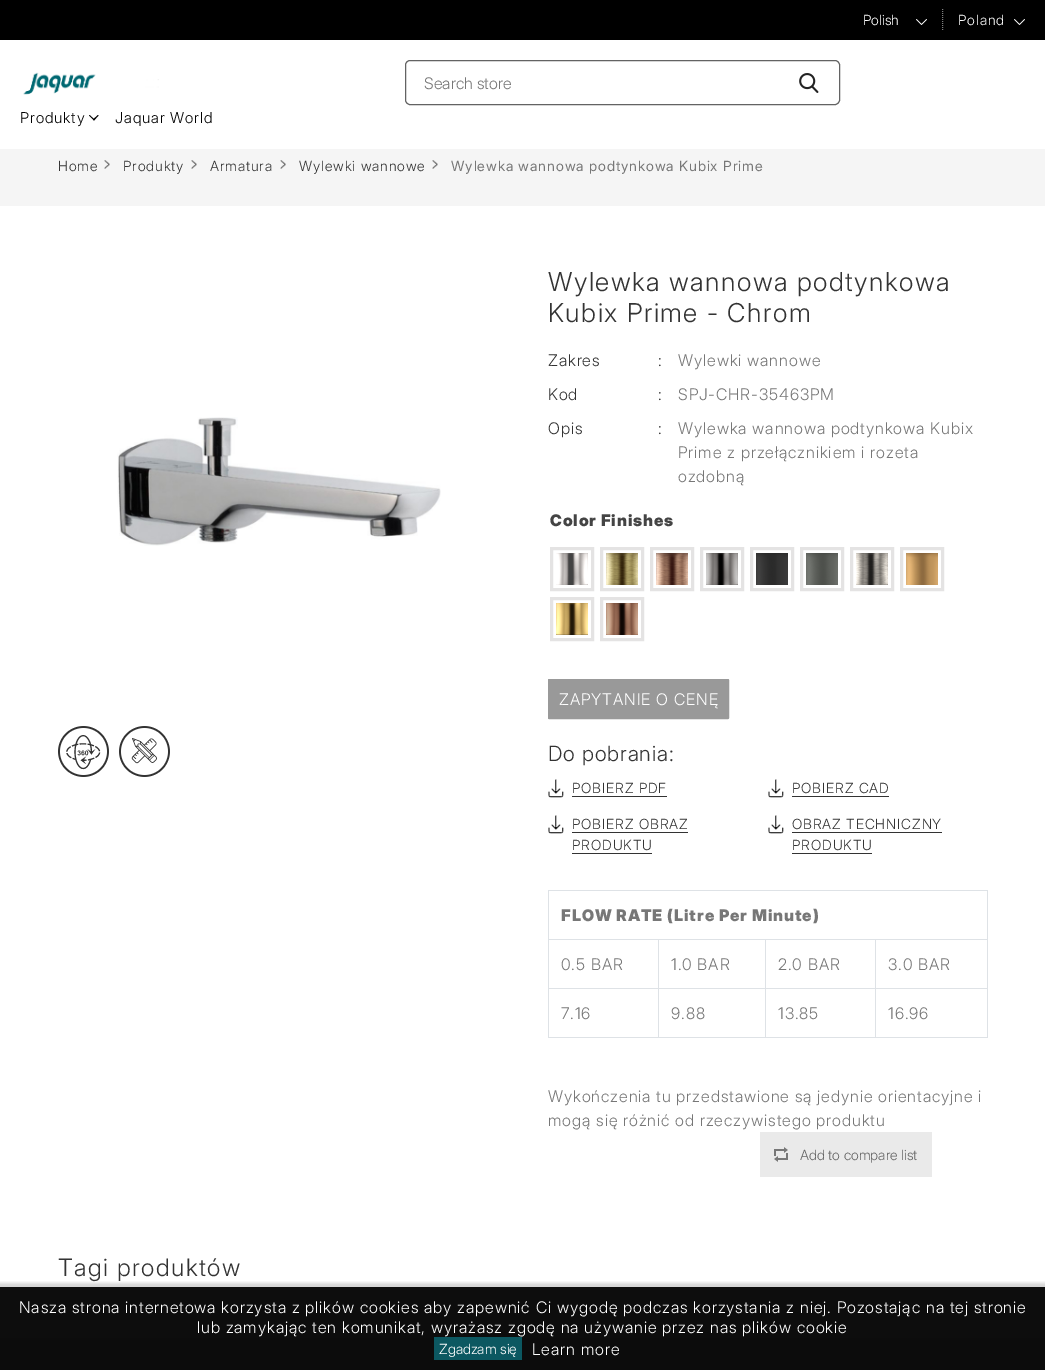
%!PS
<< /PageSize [1045 1370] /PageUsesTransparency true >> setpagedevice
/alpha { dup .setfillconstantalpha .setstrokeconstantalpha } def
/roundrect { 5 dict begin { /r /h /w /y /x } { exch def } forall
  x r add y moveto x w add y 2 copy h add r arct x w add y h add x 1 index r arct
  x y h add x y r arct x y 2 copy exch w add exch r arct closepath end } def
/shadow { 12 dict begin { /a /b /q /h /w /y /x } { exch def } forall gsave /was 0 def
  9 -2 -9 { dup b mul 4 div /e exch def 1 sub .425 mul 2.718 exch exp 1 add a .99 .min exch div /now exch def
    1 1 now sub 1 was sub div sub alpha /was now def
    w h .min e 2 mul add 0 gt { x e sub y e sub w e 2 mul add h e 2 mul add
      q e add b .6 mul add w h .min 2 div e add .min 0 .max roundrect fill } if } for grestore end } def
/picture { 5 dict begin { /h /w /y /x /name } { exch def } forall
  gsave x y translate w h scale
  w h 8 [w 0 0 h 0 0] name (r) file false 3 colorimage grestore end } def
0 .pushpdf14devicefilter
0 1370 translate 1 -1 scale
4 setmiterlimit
0.961 setgray
0 0 1045 1370 rectfill
0.047 setgray
0 1338 1045 32 rectfill
1 setgray
0 40 1045 109 rectfill
0 setgray
0 0 1045 40 rectfill
(img1.rgb) 916 19 11 6 picture
/Inter-Light [14 0 0 -14 0 0] selectfont
1 setgray
863 25 moveto (Polish) show
0.502 setgray
[1 1] 0 setdash
newpath 942.5 9 moveto 942.5 31 lineto stroke
(img1.rgb) 1014 19 11 6 picture
1 setgray
958 25 moveto 0.9 0 (Poland) ashow
(img2.rgb) 23 72 136 23 picture
0.388 setgray
[] 0 setdash
405.5 60.5 434 44 4.5 roundrect stroke
/Inter-Light [16 0 0 -16 0 0] selectfont
0.467 setgray
424 89 moveto (Search store) show
(img3.rgb) 799 73 20 20 picture
/Inter-Light [15 0 0 -15 0 0] selectfont
0 setgray
20 123 moveto 0.9 0 (Produkty) ashow
newpath 98 115 moveto 98.5 115.5 lineto 94 120.5 lineto 93 119.5 lineto closepath fill
newpath 89.5 115 moveto 94.5 119.5 lineto 94 120.5 lineto 89 115.5 lineto closepath fill
115 123 moveto 0.9 0 (Jaquar World) ashow
/Inter-Light [14 0 0 -14 0 0] selectfont
0.2 setgray
58 171 moveto 0.9 0 (Home) ashow
(img4.rgb) 104 160 6 9 picture
123 171 moveto 0.9 0 (Produkty) ashow
(img4.rgb) 191 160 6 9 picture
210 171 moveto 0.9 0 (Armatura) ashow
(img5.rgb) 280 160 6 9 picture
299 171 moveto 0.9 0 (Wylewki wannowe) ashow
(img4.rgb) 432 160 6 9 picture
/Inter-Regular [14 0 0 -14 0 0] selectfont
0.467 setgray
451 171 moveto 0.9 0 (Wylewka wannowa podtynkowa Kubix Prime) ashow
1 setgray
0 206 1045 1081 rectfill
0.051 setgray
0 1287 1045 51 rectfill
(img6.rgb) 117 417 324 129 picture
(img7.rgb) 58 726 51 51 picture
(img8.rgb) 119 726 51 51 picture
/Inter-Light [26 0 0 -26 0 0] selectfont
0.2 setgray
548 291 moveto 1.5 0 (Wylewka wannowa podtynkowa) ashow
548 322 moveto 1.5 0 (Kubix Prime - Chrom) ashow
/Inter-Light [16 0 0 -16 0 0] selectfont
548 366 moveto 0.9 0 (Zakres) ashow
658 366 moveto 0.9 0 (:) ashow
0.467 setgray
678 366 moveto 0.9 0 (Wylewki wannowe) ashow
0.2 setgray
548 400 moveto 0.9 0 (Kod) ashow
658 400 moveto 0.9 0 (:) ashow
0.467 setgray
678 400 moveto 0.9 0 (SPJ-CHR-35463PM) ashow
0.2 setgray
548 434 moveto 0.9 0 (Opis) ashow
658 434 moveto 0.9 0 (:) ashow
0.467 setgray
678 434 moveto 0.9 0 (Wylewka wannowa podtynkowa Kubix) ashow
678 458 moveto 0.9 0 (Prime z przełącznikiem i rozeta) ashow
678 482 moveto 0.9 0 (ozdobną) ashow
/Inter-Black [16 0 0 -16 0 0] selectfont
0.267 setgray
550 526 moveto 0.9 0 (Color Finishes) ashow
0.894 0.89 0.89 setrgbcolor
3 setlinewidth
551.5 548.5 41 41 rectstroke
(img9.rgb) 556 553 32 32 picture
601.5 548.5 41 41 rectstroke
(img10.rgb) 606 553 32 32 picture
651.5 548.5 41 41 rectstroke
(img11.rgb) 656 553 32 32 picture
701.5 548.5 41 41 rectstroke
(img12.rgb) 706 553 32 32 picture
751.5 548.5 41 41 rectstroke
(img13.rgb) 756 553 32 32 picture
801.5 548.5 41 41 rectstroke
(img14.rgb) 806 553 32 32 picture
851.5 548.5 41 41 rectstroke
(img15.rgb) 856 553 32 32 picture
901.5 548.5 41 41 rectstroke
(img16.rgb) 906 553 32 32 picture
551.5 598.5 41 41 rectstroke
(img17.rgb) 556 603 32 32 picture
601.5 598.5 41 41 rectstroke
(img18.rgb) 606 603 32 32 picture
0.6 setgray
548.5 679.5 180 39 0.5 roundrect gsave fill grestore
1 setlinewidth
stroke
/Inter-Light [16 0 0 -16 0 0] selectfont
1 setgray
559 705 moveto 0.9 0 (ZAPYTANIE O CENĘ) ashow
/Inter-Light [21 0 0 -21 0 0] selectfont
0.2 setgray
548 761 moveto 0.9 0 (Do pobrania:) ashow
(img19.rgb) 548 779 16 19 picture
/Inter-Light [14 0 0 -14 0 0] selectfont
572 793 moveto 0.9 0 (POBIERZ PDF) ashow
572 796 95 1 rectfill
(img19.rgb) 768 779 16 19 picture
792 793 moveto 0.9 0 (POBIERZ CAD) ashow
792 796 97 1 rectfill
(img19.rgb) 548 815 16 19 picture
572 829 moveto 0.9 0 (POBIERZ OBRAZ) ashow
572 832 116 1 rectfill
572 850 moveto 0.9 0 (PRODUKTU) ashow
572 853 80 1 rectfill
(img19.rgb) 768 815 16 19 picture
792 829 moveto 0.9 0 (OBRAZ TECHNICZNY) ashow
792 832 150 1 rectfill
792 850 moveto 0.9 0 (PRODUKTU) ashow
792 853 80 1 rectfill
0.871 0.886 0.902 setrgbcolor
548 890 440 1 rectfill
875 939 113 1 rectfill
875 988 113 1 rectfill
987 988 1 50 rectfill
987 939 1 50 rectfill
987 890 1 50 rectfill
875 1037 113 1 rectfill
875 988 1 50 rectfill
765 988 111 1 rectfill
875 939 1 50 rectfill
765 939 111 1 rectfill
765 1037 111 1 rectfill
765 988 1 50 rectfill
658 988 108 1 rectfill
765 939 1 50 rectfill
658 939 108 1 rectfill
658 1037 108 1 rectfill
658 988 1 50 rectfill
548 988 111 1 rectfill
658 939 1 50 rectfill
548 939 111 1 rectfill
548 1037 111 1 rectfill
548 988 1 50 rectfill
548 939 1 50 rectfill
548 890 1 50 rectfill
/Inter-Black [16 0 0 -16 0 0] selectfont
0.467 setgray
561 921 moveto 0.9 0 (FLOW RATE \(Litre Per Minute\)) ashow
/Inter-Light [16 0 0 -16 0 0] selectfont
561 970 moveto 0.9 0 (0.5 BAR) ashow
671 970 moveto 0.9 0 (1.0 BAR) ashow
778 970 moveto 0.9 0 (2.0 BAR) ashow
888 970 moveto 0.9 0 (3.0 BAR) ashow
561 1019 moveto 0.9 0 (7.16) ashow
671 1019 moveto 0.9 0 (9.88) ashow
778 1019 moveto 0.9 0 (13.85) ashow
888 1019 moveto 0.9 0 (16.96) ashow
548 1102 moveto 0.9 0 (Wykończenia tu przedstawione są jedynie orientacyjne i) ashow
548 1126 moveto 0.9 0 (mogą się różnić od rzeczywistego produktu) ashow
0.918 setgray
760 1132 172 45 rectfill
(img20.rgb) 774 1147 14 15 picture
/Inter-Light [14 0 0 -14 0 0] selectfont
0.4 setgray
800 1160 moveto (Add to compare list) show
/Inter-Light [24 0 0 -24 0 0] selectfont
0.2 setgray
58 1276 moveto 1.5 0 (Tagi produktów) ashow
gsave
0 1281 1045 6 rectclip
0 setgray
-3 1283 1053 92 0 1.5 0.16 shadow
grestore
/Inter-Light [16 0 0 -16 0 0] selectfont
1 setgray
19 1313 moveto 0.9 0 (Nasza strona internetowa korzysta z plików cookies aby zapewnić Ci wygodę podczas korzystania z niej. Pozostając na tej stronie) ashow
197 1333 moveto 0.9 0 (lub zamykając ten komunikat, wyrażasz zgodę na używanie przez nas plików cookie) ashow
0.047 0.345 0.38 setrgbcolor
434 1337 88 23 rectfill
/Inter-Light [14 0 0 -14 0 0] selectfont
1 setgray
439 1354 moveto (Zgadzam się) show
/Inter-Light [16 0 0 -16 0 0] selectfont
532 1355 moveto 0.9 0 (Learn more) ashow
.poppdf14devicefilter showpage
